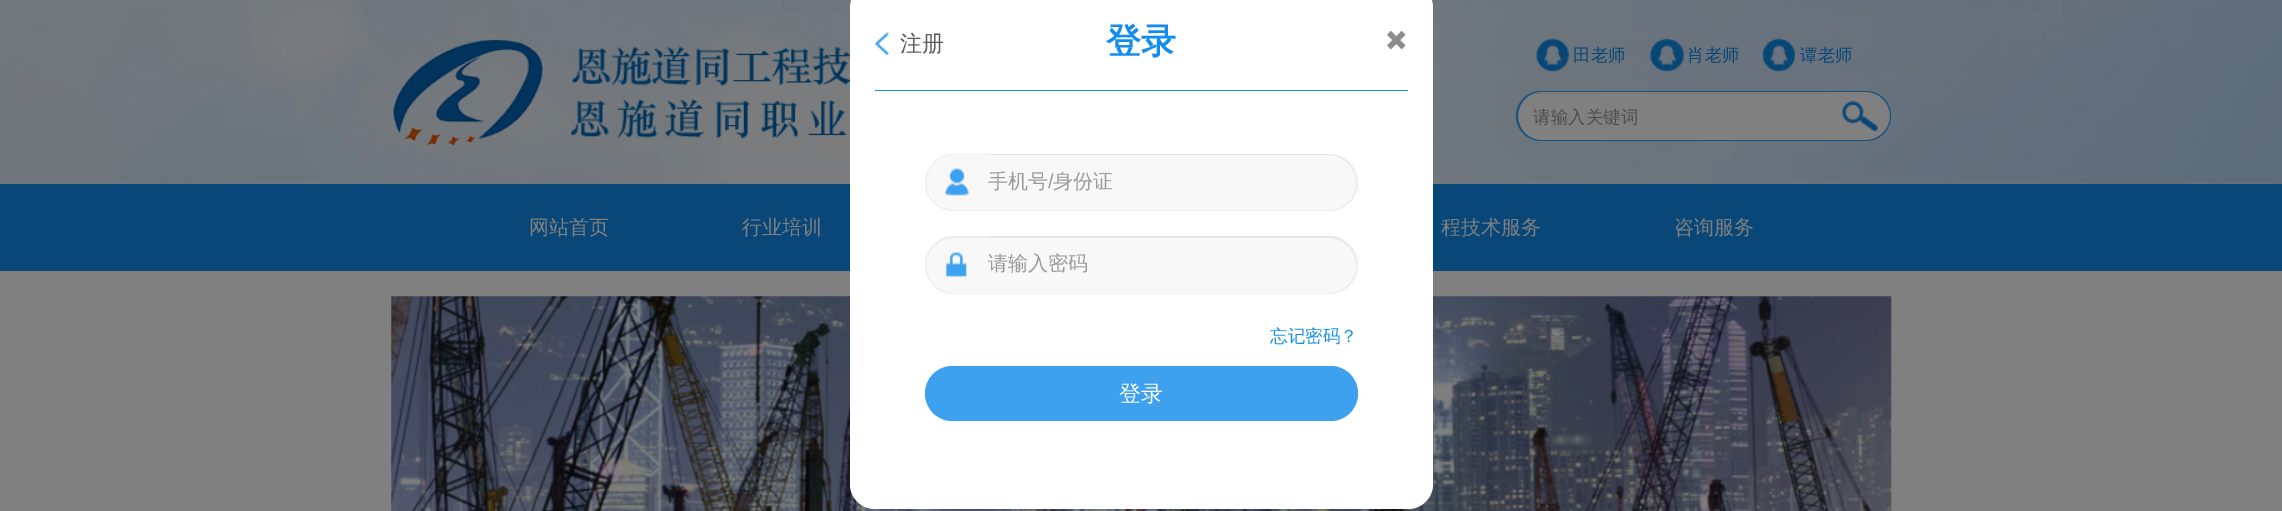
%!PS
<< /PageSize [2282 511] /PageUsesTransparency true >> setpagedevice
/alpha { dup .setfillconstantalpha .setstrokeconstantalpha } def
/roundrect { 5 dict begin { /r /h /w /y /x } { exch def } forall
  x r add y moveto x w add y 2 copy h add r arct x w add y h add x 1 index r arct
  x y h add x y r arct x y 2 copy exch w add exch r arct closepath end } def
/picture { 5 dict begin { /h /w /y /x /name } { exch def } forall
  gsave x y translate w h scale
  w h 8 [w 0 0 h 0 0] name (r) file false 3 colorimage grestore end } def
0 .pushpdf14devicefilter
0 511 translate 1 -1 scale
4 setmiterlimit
0.502 setgray
0 0 2282 511 rectfill
(img5.rgb) 0 0 2282 184 picture
0.031 0.278 0.467 setrgbcolor
0 184 2282 87 rectfill
(img11.rgb) 391 296 1501 215 picture
1 setgray
850 -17 583 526 25 roundrect fill
0.059 0.553 0.929 setrgbcolor
875 90 533 1 rectfill
(img1.rgb) 875 32 14 24 picture
/WenQuanYiZenHei-Medium [22 0 0 -22 0 0] selectfont
0.357 setgray
900 51 moveto (注册) show
/WenQuanYiZenHei-Bold [35 0 0 -35 0 0] selectfont
0.063 0.553 0.933 setrgbcolor
1106 53 moveto (登录) show
(img2.rgb) 1387 31 19 19 picture
0.973 setgray
newpath 953.5 154 moveto 988 154 lineto 988 211 lineto 953.5 211 lineto 938 211 925 198 925 182.5 curveto 925 167 938 154 953.5 154 curveto closepath fill
(img3.rgb) 945 168 24 28 picture
0.933 setgray
newpath 954 154 moveto 988 154 lineto 988 211 lineto 954 211 lineto 938 211 925 198 925 183 curveto 925 167 938 154 954 154 curveto closepath 954 155 moveto 988 155 lineto 988 210 lineto 954 210 lineto 939 210 926 198 926 183 curveto 926 167 939 155 954 155 curveto closepath eofill
0.973 setgray
newpath 988 154 moveto 1329.5 154 lineto 1345 154 1358 167 1358 182.5 curveto 1358 198 1345 211 1329.5 211 curveto 988 211 lineto closepath fill
0.898 setgray
newpath 988 155 moveto 1329 155 lineto 1344 155 1356 168 1356 184 curveto 1356 188 lineto 1356 183 lineto 1356 167 1344 154 1329 154 curveto 988 154 lineto 988 210 lineto closepath fill
0.933 setgray
newpath 988 154 moveto 1329 154 lineto 1345 154 1358 167 1358 183 curveto 1358 198 1345 211 1329 211 curveto 988 211 lineto closepath 988 154 moveto 1329 154 lineto 1344 154 1356 167 1356 183 curveto 1356 198 1344 210 1329 210 curveto 988 210 lineto closepath eofill
/WenQuanYiZenHei-Medium [20 0 0 -20 0 0] selectfont
0.6 setgray
988 188 moveto (手机号) show
/LiberationSans-Regular [20 0 0 -20 0 0] selectfont
1048 188 moveto (/) show
/WenQuanYiZenHei-Medium [20 0 0 -20 0 0] selectfont
1053 188 moveto (身份证) show
0.973 setgray
newpath 954 236 moveto 988 236 lineto 988 294 lineto 954 294 lineto 938 294 925 281 925 265 curveto 925 249 938 236 954 236 curveto closepath fill
(img4.rgb) 946 252 21 25 picture
0.933 setgray
newpath 954 236 moveto 988 236 lineto 988 294 lineto 954 294 lineto 938 294 925 281 925 265 curveto 925 249 938 236 954 236 curveto closepath 954 238 moveto 988 238 lineto 988 293 lineto 954 293 lineto 939 293 926 280 926 265 curveto 926 250 939 238 954 238 curveto closepath eofill
0.973 setgray
newpath 988 236 moveto 1329 236 lineto 1345 236 1358 249 1358 265 curveto 1358 281 1345 294 1329 294 curveto 988 294 lineto closepath fill
0.07 alpha
0 setgray
newpath 988 238 moveto 1329 238 lineto 1344 238 1356 250 1356 266 curveto 1356 271 lineto 1356 265 lineto 1356 249 1344 236 1329 236 curveto 988 236 lineto 988 293 lineto closepath fill
1 alpha
0.933 setgray
newpath 988 236 moveto 1329 236 lineto 1345 236 1358 249 1358 265 curveto 1358 281 1345 294 1329 294 curveto 988 294 lineto closepath 988 236 moveto 1329 236 lineto 1344 236 1356 249 1356 265 curveto 1356 280 1344 293 1329 293 curveto 988 293 lineto closepath eofill
0.6 setgray
988 270 moveto (请输入密码) show
/WenQuanYiZenHei-Medium [17.5 0 0 -17.5 0 0] selectfont
0.063 0.553 0.933 setrgbcolor
1270 342 moveto (忘记密码？) show
0.239 0.631 0.937 setrgbcolor
925 366 433 55 27.5 roundrect fill
/WenQuanYiZenHei-Medium [22 0 0 -22 0 0] selectfont
1 setgray
1119 401 moveto (登录) show
(img6.rgb) 391 38 459 109 picture
(img7.rgb) 1536 38 33 34 picture
/WenQuanYiZenHei-Medium [17.5 0 0 -17.5 0 0] selectfont
0.031 0.278 0.467 setrgbcolor
1573 61 moveto (田老师) show
(img8.rgb) 1650 38 34 34 picture
1687 61 moveto (肖老师) show
(img9.rgb) 1762 38 33 34 picture
1800 61 moveto (谭老师) show
0.502 setgray
newpath 1541 91 moveto 1833 91 lineto 1833 141 lineto 1541 141 lineto 1527 141 1516 130 1516 116 curveto 1516 102 1527 91 1541 91 curveto closepath fill
0.463 setgray
newpath 1541 94 moveto 1832 94 lineto 1832 140 lineto 1833 140 lineto 1833 93 lineto 1542 93 lineto 1528 93 1518 104 1518 117 curveto 1518 104 1528 94 1541 94 curveto closepath fill
0.106 0.325 0.494 setrgbcolor
newpath 1541 91 moveto 1832 91 lineto 1832 141 lineto 1541 141 lineto 1527 141 1516 130 1516 116 curveto 1516 102 1527 91 1541 91 curveto closepath 1541 92 moveto 1832 92 lineto 1832 140 lineto 1541 140 lineto 1528 140 1518 129 1518 116 curveto 1518 103 1528 92 1541 92 curveto closepath eofill
0.302 setgray
1533 123 moveto (请输入关键词) show
0.502 setgray
newpath 1831 91 moveto 1866 91 lineto 1880 91 1891 102 1891 116 curveto 1891 130 1880 141 1866 141 curveto 1831 141 lineto closepath fill
(img10.rgb) 1842 101 37 31 picture
0.106 0.325 0.494 setrgbcolor
newpath 1831 91 moveto 1866 91 lineto 1880 91 1891 102 1891 116 curveto 1891 130 1880 141 1866 141 curveto 1831 141 lineto closepath 1831 92 moveto 1866 92 lineto 1879 92 1890 103 1890 116 curveto 1890 129 1879 140 1866 140 curveto 1831 140 lineto closepath eofill
/WenQuanYiZenHei-Medium [20 0 0 -20 0 0] selectfont
0.502 setgray
529 234 moveto (网站首页) show
742 234 moveto (行业培训) show
1441 234 moveto (程技术服务) show
1674 234 moveto (咨询服务) show
.poppdf14devicefilter showpage
